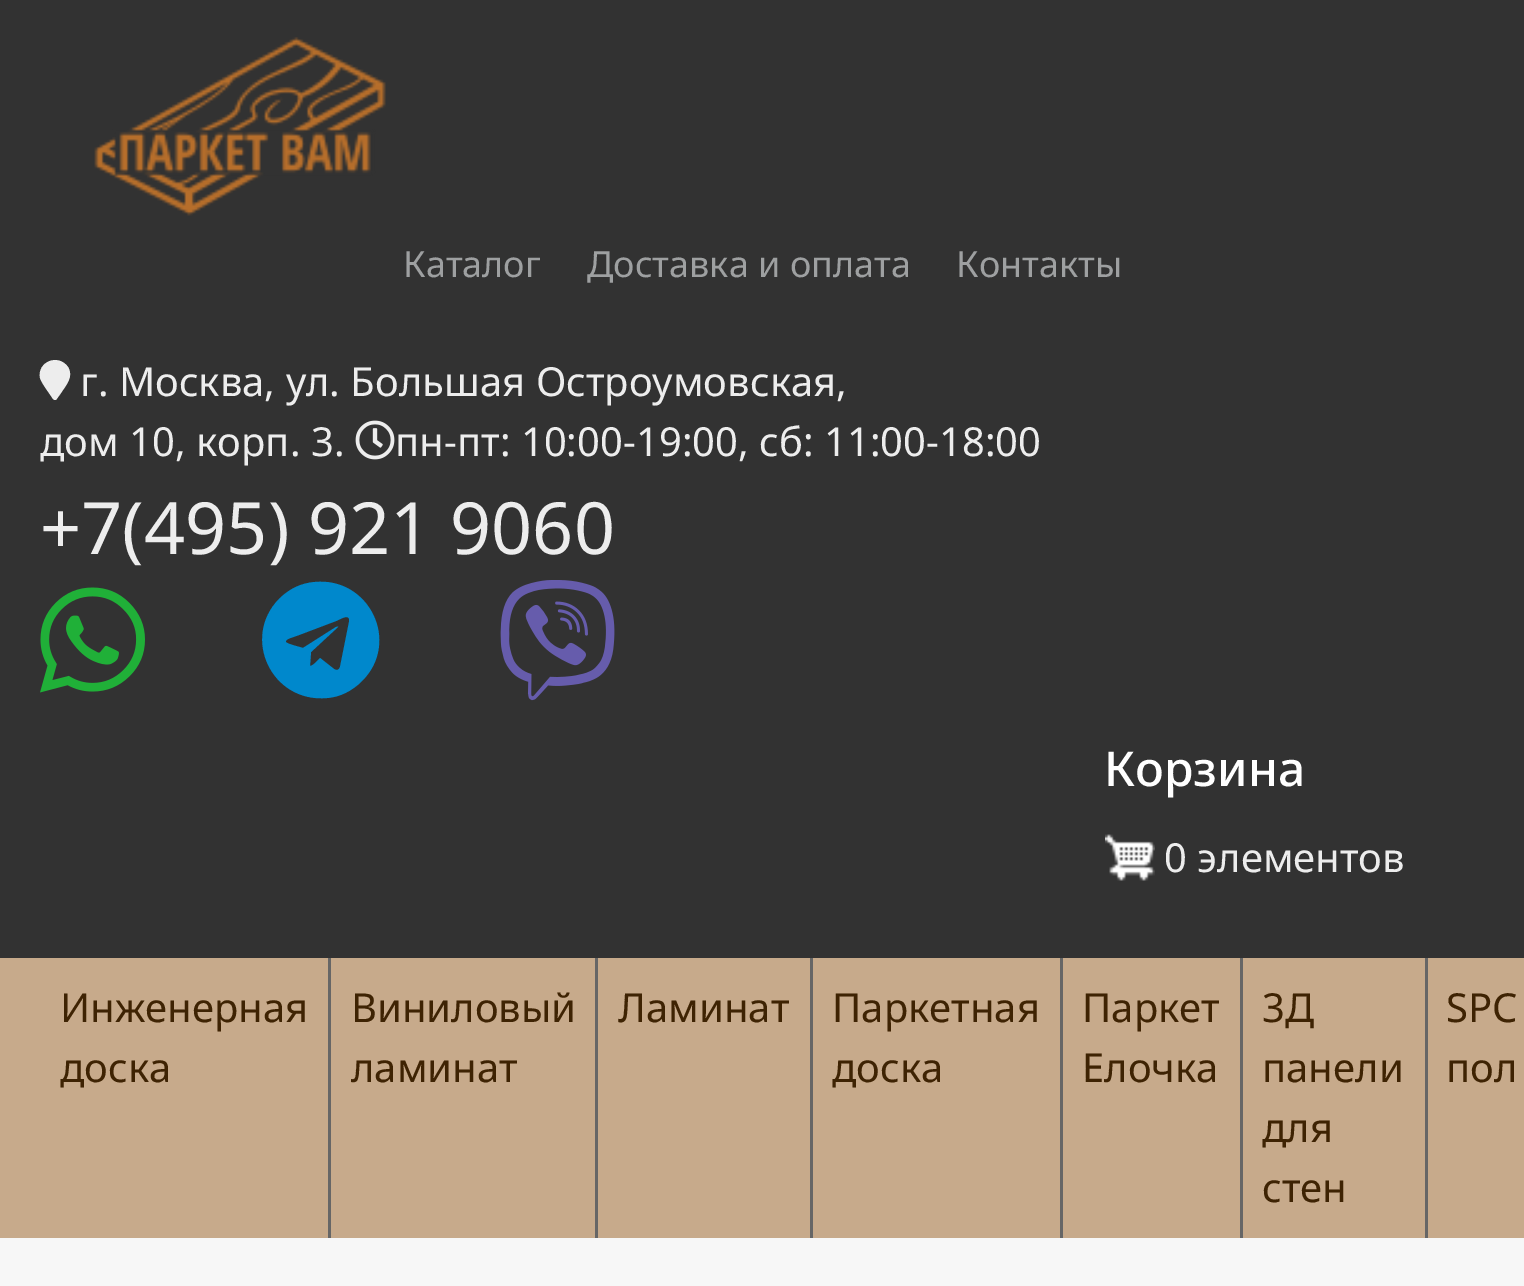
%!PS
<< /PageSize [1524 1286] >> setpagedevice
/picture { 5 dict begin { /h /w /y /x /name } { exch def } forall
  gsave x y translate w h scale
  w h 8 [w 0 0 h 0 0] name (r) file false 3 colorimage grestore end } def
0 1286 translate 1 -1 scale
4 setmiterlimit
0.969 setgray
0 0 1524 1286 rectfill
0.196 setgray
0 0 1524 958 rectfill
(img1.rgb) 94 37 292 179 picture
/NotoSans-Regular [36 0 0 -36 0 0] selectfont
0.62 0.627 0.631 setrgbcolor
403 277 moveto (Каталог) show
587 277 moveto (Доставка и оплата) show
956 277 moveto (Контакты) show
0.929 setgray
newpath 53 399 moveto 50 394 42 384 40 378 curveto 37 362 58 353 68 367 curveto 74 377 66 385 61 393 curveto 56 400 lineto 55 400 54 400 53 399 curveto closepath fill
/NotoSans-Regular [40 0 0 -40 0 0] selectfont
80 396 moveto (г. Москва, ул. Большая Остроумовская,) show
40 456 moveto (дом 10, корп. 3.) show
(img2.rgb) 355 420 40 40 picture
395 456 moveto (пн-пт: 10:00-19:00, сб: 11:00-18:00) show
/NotoSans-Regular [72 0 0 -72 0 0] selectfont
40 554 moveto (+7\(495\) 921 9060) show
(img3.rgb) 40 587 105 106 picture
0 0.533 0.8 setrgbcolor
newpath 279 599 moveto 289 589 301 583 315 582 curveto 369 577 401 642 362 681 curveto 352 691 340 697 327 698 curveto 272 703 241 638 279 599 curveto closepath 349 622 moveto 351 612 339 620 336 621 curveto 299 635 lineto 291 638 285 639 286 642 curveto 287 644 300 647 303 648 curveto 336 627 lineto 337 627 339 626 338 627 curveto 311 652 lineto 310 666 lineto 313 666 318 660 320 658 curveto 334 669 lineto 337 671 339 670 340 667 curveto closepath fill
(img4.rgb) 500 580 115 121 picture
/NotoSans-Medium [48 0 0 -48 0 0] selectfont
1 setgray
1104 786 moveto (Корзина) show
(img5.rgb) 1105 834 50 47 picture
/NotoSans-Regular [40 0 0 -40 0 0] selectfont
0.929 setgray
1164 872 moveto (0 элементов) show
0.78 0.667 0.545 setrgbcolor
0 958 1524 280 rectfill
0.4 setgray
328 958 3 280 rectfill
0.243 0.137 0.012 setrgbcolor
60 1022 moveto (Инженерная) show
60 1082 moveto (доска) show
0.4 setgray
595 958 3 280 rectfill
0.243 0.137 0.012 setrgbcolor
351 1022 moveto (Виниловый) show
351 1082 moveto (ламинат) show
0.4 setgray
810 958 3 280 rectfill
0.243 0.137 0.012 setrgbcolor
618 1022 moveto (Ламинат) show
0.4 setgray
1060 958 3 280 rectfill
0.243 0.137 0.012 setrgbcolor
832 1022 moveto (Паркетная) show
832 1082 moveto (доска) show
0.4 setgray
1240 958 3 280 rectfill
0.243 0.137 0.012 setrgbcolor
1082 1022 moveto (Паркет) show
1082 1082 moveto (Елочка) show
0.4 setgray
1425 958 3 280 rectfill
0.243 0.137 0.012 setrgbcolor
1262 1022 moveto (3Д) show
1262 1082 moveto (панели) show
1262 1142 moveto (для) show
1262 1202 moveto (стен) show
1446 1022 moveto (SPC) show
1446 1082 moveto (пол) show
showpage
